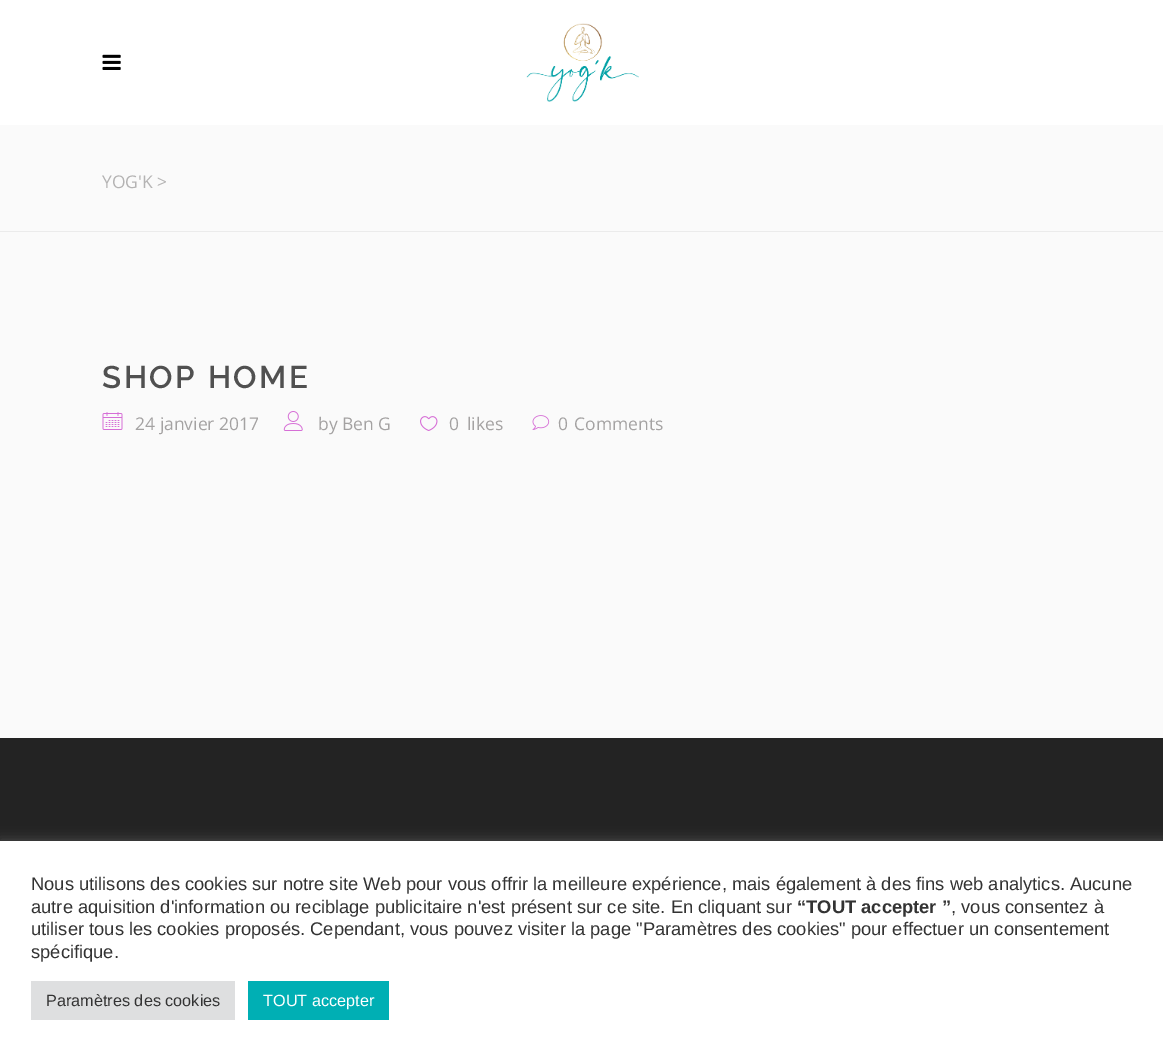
%!PS
<< /PageSize [1163 1057] /PageUsesTransparency true >> setpagedevice
/alpha { dup .setfillconstantalpha .setstrokeconstantalpha } def
/roundrect { 5 dict begin { /r /h /w /y /x } { exch def } forall
  x r add y moveto x w add y 2 copy h add r arct x w add y h add x 1 index r arct
  x y h add x y r arct x y 2 copy exch w add exch r arct closepath end } def
/shadow { 12 dict begin { /a /b /q /h /w /y /x } { exch def } forall gsave /was 0 def
  9 -2 -9 { dup b mul 4 div /e exch def 1 sub .425 mul 2.718 exch exp 1 add a .99 .min exch div /now exch def
    1 1 now sub 1 was sub div sub alpha /was now def
    w h .min e 2 mul add 0 gt { x e sub y e sub w e 2 mul add h e 2 mul add
      q e add b .6 mul add w h .min 2 div e add .min 0 .max roundrect fill } if } for grestore end } def
/picture { 5 dict begin { /h /w /y /x /name } { exch def } forall
  gsave x y translate w h scale
  w h 8 [w 0 0 h 0 0] name (r) file false 3 colorimage grestore end } def
0 .pushpdf14devicefilter
0 1057 translate 1 -1 scale
4 setmiterlimit
0.98 setgray
0 0 1163 1057 rectfill
1 setgray
0 0 1163 125 rectfill
(img1.rgb) 102 54 19 16 picture
(img2.rgb) 526 23 113 79 picture
0.922 setgray
0 231 1163 1 rectfill
/OpenSans-Regular [17.5 0 0 -17.5 0 0] selectfont
0.706 0.702 0.702 setrgbcolor
102 188 moveto (YOG'K >) show
/Raleway-SemiBold [31.25 0 0 -31.25 0 0] selectfont
0.314 setgray
102 388 moveto 2.5 0 (SHOP HOME) ashow
(img3.rgb) 102 412 21 18 picture
/OpenSans-Regular [17.5 0 0 -17.5 0 0] selectfont
0.643 0.635 0.635 setrgbcolor
135 430 moveto (24 janvier 2017) show
(img4.rgb) 283 411 20 20 picture
318 430 moveto (by Ben G) show
(img5.rgb) 420 416 18 15 picture
449 430 moveto (0) show
467 430 moveto (likes) show
(img6.rgb) 532 415 18 15 picture
558 430 moveto (0) show
574 430 moveto (Comments) show
0.137 setgray
0 738 1163 103 rectfill
0.675 0.671 0.671 setrgbcolor
0 840 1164 216 0 6 0.3 shadow
1 setgray
0 841 1163 216 rectfill
/LiberationSans-Regular [18.33 0 0 -18.33 0 0] selectfont
0.2 setgray
31 890 moveto (Nous utilisons des cookies sur notre site Web pour vous offrir la meilleure expérience, mais également à des fins web analytics. Aucune) show
31 913 moveto (autre aquisition d'information ou reciblage publicitaire n'est présent sur ce site. En cliquant sur) show
/LiberationSans-Bold [18.33 0 0 -18.33 0 0] selectfont
797 913 moveto (“TOUT accepter ”) show
/LiberationSans-Regular [18.33 0 0 -18.33 0 0] selectfont
951 913 moveto (, vous consentez à) show
31 935 moveto (utiliser tous les cookies proposés. Cependant, vous pouvez visiter la page "Paramètres des cookies" pour effectuer un consentement) show
31 958 moveto (spécifique.) show
0.871 0.875 0.878 setrgbcolor
31 981 204 39 rectfill
/LiberationSans-Regular [16.25 0 0 -16.25 0 0] selectfont
0.2 setgray
46 1006 moveto (Paramètres des cookies) show
0 0.686 0.706 setrgbcolor
248 981 141 39 rectfill
1 setgray
263 1006 moveto (TOUT accepter) show
.poppdf14devicefilter showpage
